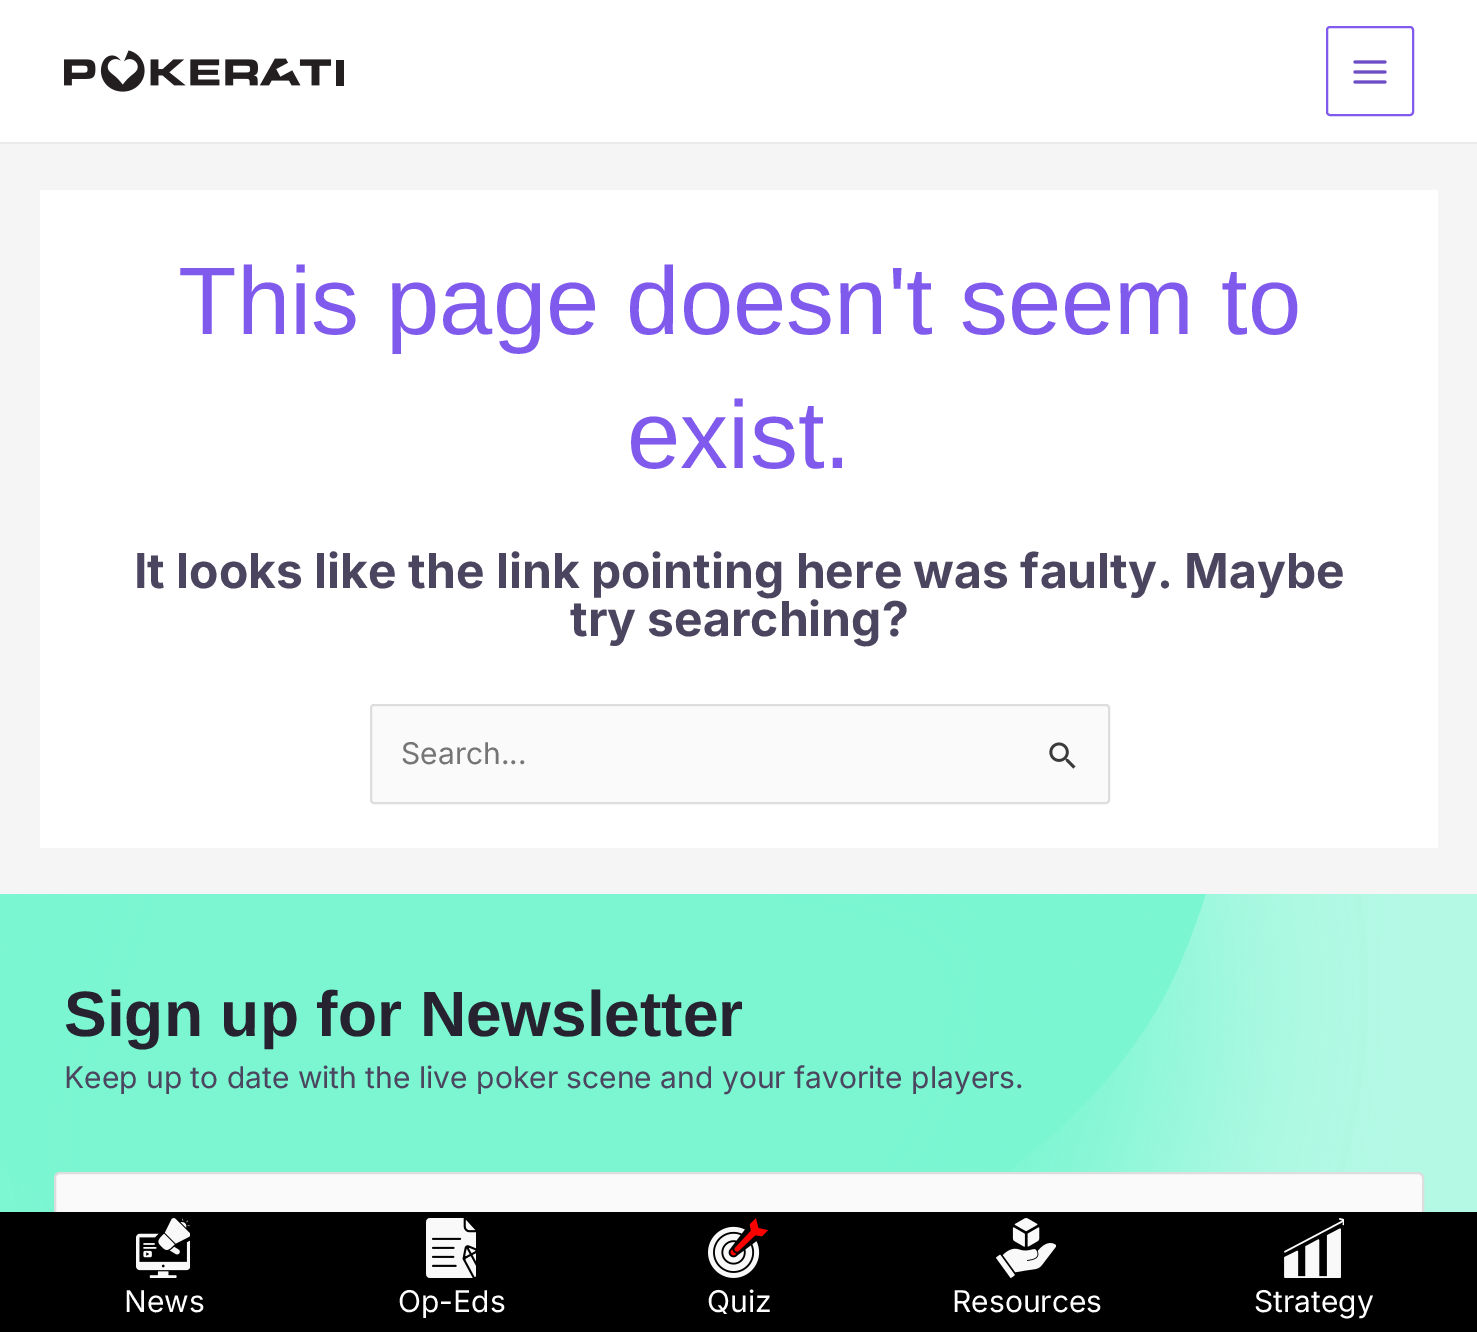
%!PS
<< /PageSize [1477 1332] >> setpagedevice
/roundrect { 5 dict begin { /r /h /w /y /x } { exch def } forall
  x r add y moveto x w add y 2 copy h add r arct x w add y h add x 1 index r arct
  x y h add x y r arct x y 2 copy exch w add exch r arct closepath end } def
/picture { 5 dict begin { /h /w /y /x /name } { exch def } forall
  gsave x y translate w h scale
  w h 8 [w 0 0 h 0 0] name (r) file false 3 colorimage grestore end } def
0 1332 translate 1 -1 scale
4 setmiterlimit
0.961 setgray
0 0 1477 1332 rectfill
1 setgray
0 0 1477 142 rectfill
0.918 setgray
0 142 1477 2 rectfill
(img1.rgb) 64 50 280 42 picture
0.502 0.353 0.929 setrgbcolor
2 setlinewidth
1327 27 86 88 3 roundrect stroke
(img2.rgb) 1353 60 34 24 picture
1 setgray
40 190 1398 658 rectfill
/LiberationSans-Regular [96 0 0 -96 0 0] selectfont
0.502 0.353 0.929 setrgbcolor
178 334 moveto (This page doesn't seem to) show
627 468 moveto (exist.) show
/Inter-Bold [48 0 0 -48 0 0] selectfont
0.298 0.271 0.373 setrgbcolor
134 588 moveto (It looks like the link pointing here was faulty. Maybe) show
570 636 moveto (try searching?) show
0.98 setgray
371 705 738 98 3 roundrect gsave fill grestore
0.867 setgray
stroke
/Inter-Regular [30 0 0 -30 0 0] selectfont
0.459 setgray
401 764 moveto (Search...) show
(img3.rgb) 1049 742 27 27 picture
(img4.rgb) 0 894 1477 318 picture
/LiberationSans-Bold [64 0 0 -64 0 0] selectfont
0.149 0.133 0.184 setrgbcolor
64 1036 moveto (Sign up for Newsletter) show
/Inter-Regular [30 0 0 -30 0 0] selectfont
0.298 0.271 0.373 setrgbcolor
64 1088 moveto (Keep up to date with the live poker scene and your favorite players.) show
0.98 setgray
55 1173 1368 98 5 roundrect gsave fill grestore
0.867 setgray
stroke
0 setgray
0 1212 1477 120 rectfill
(img5.rgb) 136 1218 54 60 picture
1 setgray
124 1312 moveto (News) show
(img6.rgb) 426 1218 50 60 picture
398 1312 moveto (Op-Eds) show
(img7.rgb) 708 1218 60 60 picture
707 1312 moveto (Quiz) show
(img8.rgb) 996 1218 60 60 picture
952 1312 moveto (Resources) show
(img9.rgb) 1284 1218 60 60 picture
1254 1312 moveto (Strategy) show
showpage
